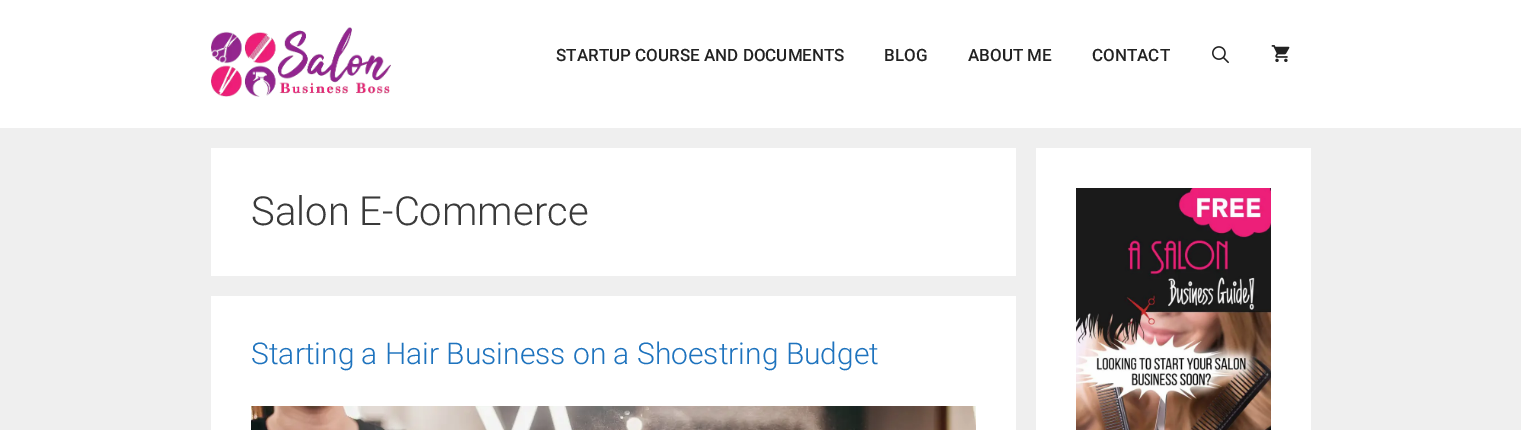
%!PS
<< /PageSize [1521 430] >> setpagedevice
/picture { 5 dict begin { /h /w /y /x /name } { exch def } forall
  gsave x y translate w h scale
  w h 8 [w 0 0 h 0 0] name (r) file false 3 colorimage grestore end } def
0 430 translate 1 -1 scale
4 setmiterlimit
0.937 setgray
0 0 1521 430 rectfill
1 setgray
0 0 1521 128 rectfill
(img1.rgb) 211 27 180 70 picture
/Roboto-Medium [17 0 0 -17 0 0] selectfont
0.133 setgray
556 61 moveto (STARTUP COURSE AND DOCUMENTS) show
884 61 moveto (BLOG) show
968 61 moveto (ABOUT ME) show
1092 61 moveto (CONTACT) show
(img2.rgb) 1212 46 17 18 picture
(img3.rgb) 1271 45 19 17 picture
1 setgray
211 148 805 128 rectfill
/Roboto-Light [40 0 0 -40 0 0] selectfont
0.227 setgray
251 225 moveto (Salon E-Commerce) show
1 setgray
211 296 805 134 rectfill
/Roboto-Light [30 0 0 -30 0 0] selectfont
0.118 0.451 0.745 setrgbcolor
251 364 moveto (Starting a Hair Business on a Shoestring Budget) show
(img4.rgb) 251 406 725 24 picture
1 setgray
1036 148 275 282 rectfill
(img5.rgb) 1076 188 195 242 picture
showpage
